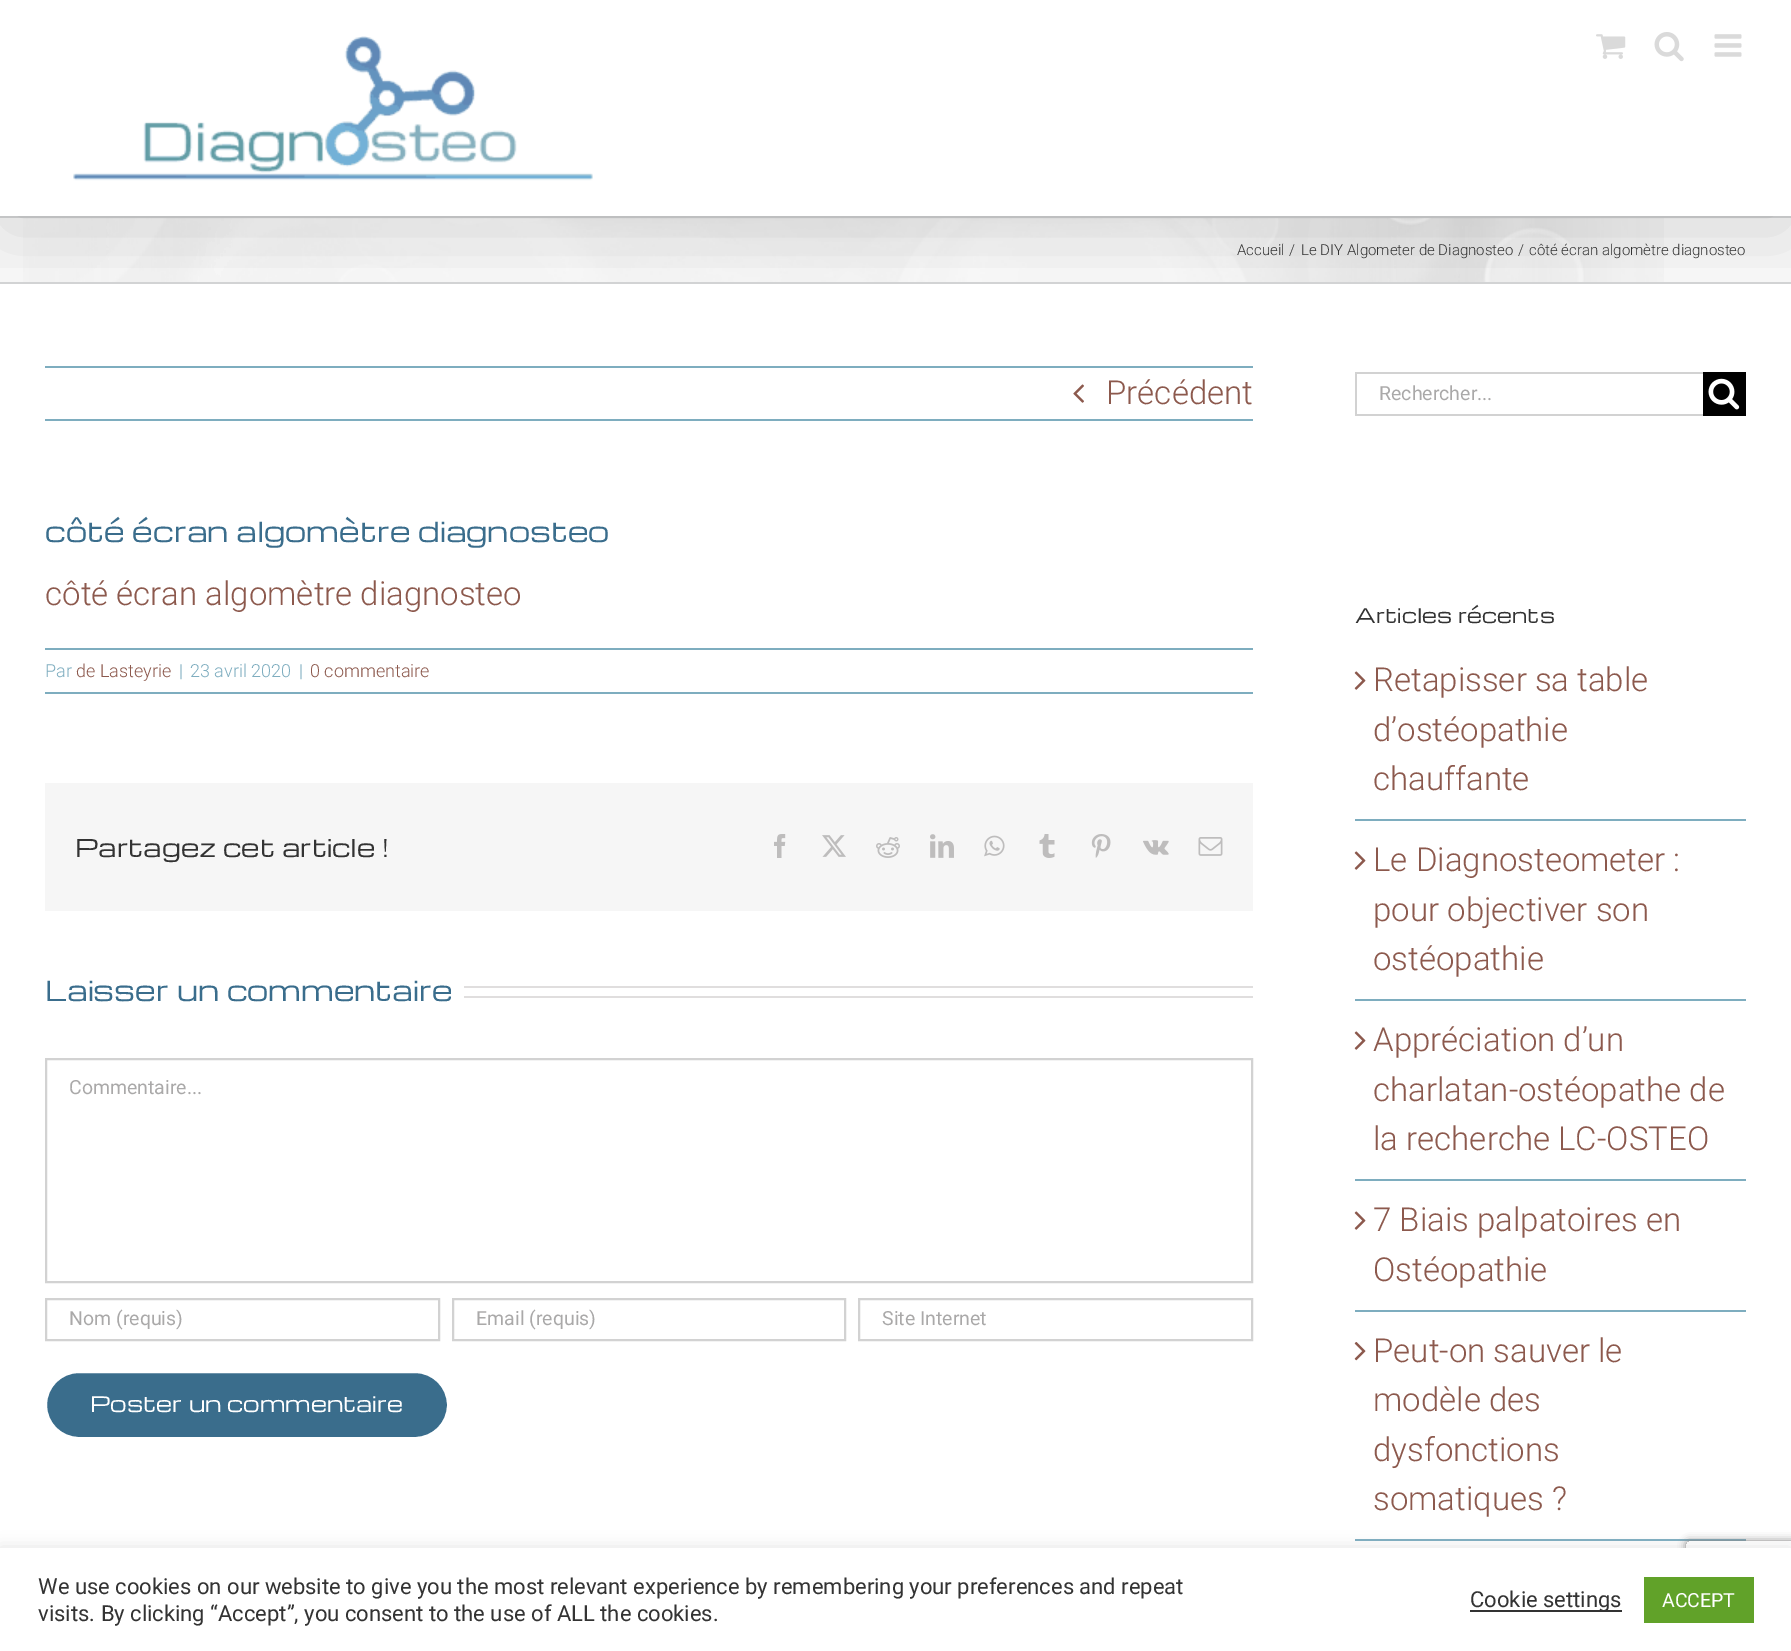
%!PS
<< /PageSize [1791 1651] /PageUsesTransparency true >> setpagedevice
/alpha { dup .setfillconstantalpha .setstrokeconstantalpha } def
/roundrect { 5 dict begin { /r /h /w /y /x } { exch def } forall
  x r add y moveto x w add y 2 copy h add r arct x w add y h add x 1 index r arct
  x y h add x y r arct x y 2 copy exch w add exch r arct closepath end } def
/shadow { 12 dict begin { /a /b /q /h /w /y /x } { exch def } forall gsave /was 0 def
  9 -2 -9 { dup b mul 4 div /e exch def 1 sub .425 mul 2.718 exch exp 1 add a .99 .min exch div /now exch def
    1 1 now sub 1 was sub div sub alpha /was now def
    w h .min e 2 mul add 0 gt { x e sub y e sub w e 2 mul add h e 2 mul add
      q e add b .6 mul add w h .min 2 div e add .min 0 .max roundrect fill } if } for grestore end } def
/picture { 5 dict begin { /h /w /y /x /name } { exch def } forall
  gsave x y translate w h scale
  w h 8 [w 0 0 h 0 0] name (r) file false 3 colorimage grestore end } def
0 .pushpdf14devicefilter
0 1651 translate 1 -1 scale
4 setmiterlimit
1 setgray
0 0 1791 1651 rectfill
0.965 setgray
0 218 1791 64 rectfill
(img5.rgb) 23 218 1641 64 picture
0.824 0.827 0.831 setrgbcolor
0 216 1791 2 rectfill
0 282 1791 2 rectfill
gsave
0 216 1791 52 rectclip
0 setgray
3 18 1785 210 0 37.5 0.14 shadow
grestore
(img1.rgb) 73 36 520 145 picture
(img2.rgb) 1596 34 30 25 picture
(img3.rgb) 1654 32 30 30 picture
(img4.rgb) 1714 34 28 23 picture
/Roboto-Light [15 0 0 -15 0 0] selectfont
0.2 setgray
1237 255 moveto (Accueil) show
1289 255 moveto (/) show
1301 255 moveto (Le DIY Algometer de Diagnosteo) show
1518 255 moveto (/) show
1529 255 moveto (côté écran algomètre diagnosteo) show
0.494 0.678 0.749 setrgbcolor
45 366 1208 2 rectfill
45 419 1208 2 rectfill
(img6.rgb) 1073 384 11 19 picture
/Roboto-Light [33 0 0 -33 0 0] selectfont
0.549 0.349 0.302 setrgbcolor
1106 404 moveto (Précédent) show
/Michroma-Regular [27 0 0 -27 0 0] selectfont
0.227 0.427 0.549 setrgbcolor
45 542 moveto (côté écran algomètre diagnosteo) show
/Roboto-Light [33 0 0 -33 0 0] selectfont
0.549 0.349 0.302 setrgbcolor
45 605 moveto (côté écran algomètre diagnosteo) show
0.494 0.678 0.749 setrgbcolor
45 648 1208 2 rectfill
45 692 1208 2 rectfill
/Roboto-Light [18 0 0 -18 0 0] selectfont
45 677 moveto (Par) show
0.549 0.349 0.302 setrgbcolor
76 677 moveto (de Lasteyrie) show
0.494 0.678 0.749 setrgbcolor
179 677 moveto (|) show
190 677 moveto (23 avril 2020) show
299 677 moveto (|) show
0.549 0.349 0.302 setrgbcolor
310 677 moveto (0 commentaire) show
0.965 setgray
45 783 1208 128 rectfill
/Michroma-Regular [24 0 0 -24 0 0] selectfont
0.2 setgray
75 857 moveto (Partagez cet article !) show
(img7.rgb) 774 834 12 24 picture
(img8.rgb) 822 835 24 22 picture
(img9.rgb) 876 837 24 21 picture
(img10.rgb) 930 834 24 24 picture
(img11.rgb) 984 835 21 22 picture
(img12.rgb) 1039 834 16 24 picture
(img13.rgb) 1091 834 20 24 picture
(img14.rgb) 1143 840 26 15 picture
(img15.rgb) 1198 837 25 19 picture
/Michroma-Regular [27 0 0 -27 0 0] selectfont
0.227 0.427 0.549 setrgbcolor
45 1001 moveto (Laisser un commentaire) show
0.878 0.871 0.871 setrgbcolor
464 986 789 2 rectfill
464 996 789 2 rectfill
0.824 setgray
2 setlinewidth
46 1059 1206 223 rectstroke
/Roboto-Regular [19.5 0 0 -19.5 0 0] selectfont
0.667 0.663 0.663 setrgbcolor
69 1094 moveto (Commentaire...) show
0.824 setgray
46 1299 393 41 rectstroke
0.667 0.663 0.663 setrgbcolor
69 1325 moveto (Nom \(requis\)) show
0.824 setgray
453 1299 392 41 rectstroke
0.667 0.663 0.663 setrgbcolor
476 1325 moveto (Email \(requis\)) show
0.824 setgray
859 1299 393 41 rectstroke
0.667 0.663 0.663 setrgbcolor
882 1325 moveto (Site Internet) show
0.227 0.427 0.549 setrgbcolor
46 1372 402 66 33 roundrect gsave fill grestore
1 setgray
stroke
/Michroma-Regular [21 0 0 -21 0 0] selectfont
90 1412 moveto (Poster un commentaire) show
0.824 setgray
1355 372 348 2 rectfill
1355 414 348 2 rectfill
1355 372 2 44 rectfill
/Roboto-Regular [19.5 0 0 -19.5 0 0] selectfont
0.667 0.663 0.663 setrgbcolor
1379 400 moveto (Rechercher...) show
0 setgray
1703 372 43 44 rectfill
(img16.rgb) 1708 378 32 32 picture
/Michroma-Regular [19.5 0 0 -19.5 0 0] selectfont
0.2 setgray
1355 623 moveto (Articles récents) show
0.494 0.678 0.749 setrgbcolor
1355 819 391 2 rectfill
(img17.rgb) 1354 671 12 19 picture
/Roboto-Light [33 0 0 -33 0 0] selectfont
0.549 0.349 0.302 setrgbcolor
1373 691 moveto (Retapisser sa table) show
1373 741 moveto (d’ostéopathie) show
1373 790 moveto (chauffante) show
0.494 0.678 0.749 setrgbcolor
1355 999 391 2 rectfill
(img17.rgb) 1354 851 12 19 picture
0.549 0.349 0.302 setrgbcolor
1373 871 moveto (Le Diagnosteometer :) show
1373 921 moveto (pour objectiver son) show
1373 970 moveto (ostéopathie) show
0.494 0.678 0.749 setrgbcolor
1355 1179 391 2 rectfill
(img17.rgb) 1354 1031 12 19 picture
0.549 0.349 0.302 setrgbcolor
1373 1051 moveto (Appréciation d’un) show
1373 1101 moveto (charlatan-ostéopathe de) show
1373 1150 moveto (la recherche LC-OSTEO) show
0.494 0.678 0.749 setrgbcolor
1355 1310 391 2 rectfill
(img17.rgb) 1354 1211 12 19 picture
0.549 0.349 0.302 setrgbcolor
1373 1231 moveto (7 Biais palpatoires en) show
1373 1281 moveto (Ostéopathie) show
0.494 0.678 0.749 setrgbcolor
1355 1539 391 2 rectfill
(img18.rgb) 1354 1342 12 19 picture
0.549 0.349 0.302 setrgbcolor
1373 1362 moveto (Peut-on sauver le) show
1373 1411 moveto (modèle des) show
1373 1461 moveto (dysfonctions) show
1373 1510 moveto (somatiques ?) show
gsave
newpath 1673 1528 moveto 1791 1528 lineto 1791 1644 lineto 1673 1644 lineto closepath 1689 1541 moveto 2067 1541 lineto 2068.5 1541 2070 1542.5 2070 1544 curveto 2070 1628 lineto 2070 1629.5 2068.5 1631 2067 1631 curveto 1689 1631 lineto 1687.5 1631 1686 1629.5 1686 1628 curveto 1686 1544 lineto 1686 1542.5 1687.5 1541 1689 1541 curveto closepath eoclip newpath
0.502 setgray
1686 1541 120 90 3 4 1 shadow
grestore
0.675 0.671 0.671 setrgbcolor
0 1547 1791 103 0 7.5 0.3 shadow
1 setgray
0 1548 1791 103 rectfill
/Roboto-Regular [22 0 0 -22 0 0] selectfont
0.2 setgray
38 1594 moveto (We use cookies on our website to give you the most relevant experience by remembering your preferences and repeat) show
38 1621 moveto (visits. By clicking “Accept”, you consent to the use of ALL the cookies.) show
1470 1610 152 2 rectfill
1470 1607 moveto (Cookie settings) show
0.38 0.635 0.161 setrgbcolor
1644 1577 110 46 rectfill
/Roboto-Regular [19.5 0 0 -19.5 0 0] selectfont
1 setgray
1662 1607 moveto (ACCEPT) show
.poppdf14devicefilter showpage
